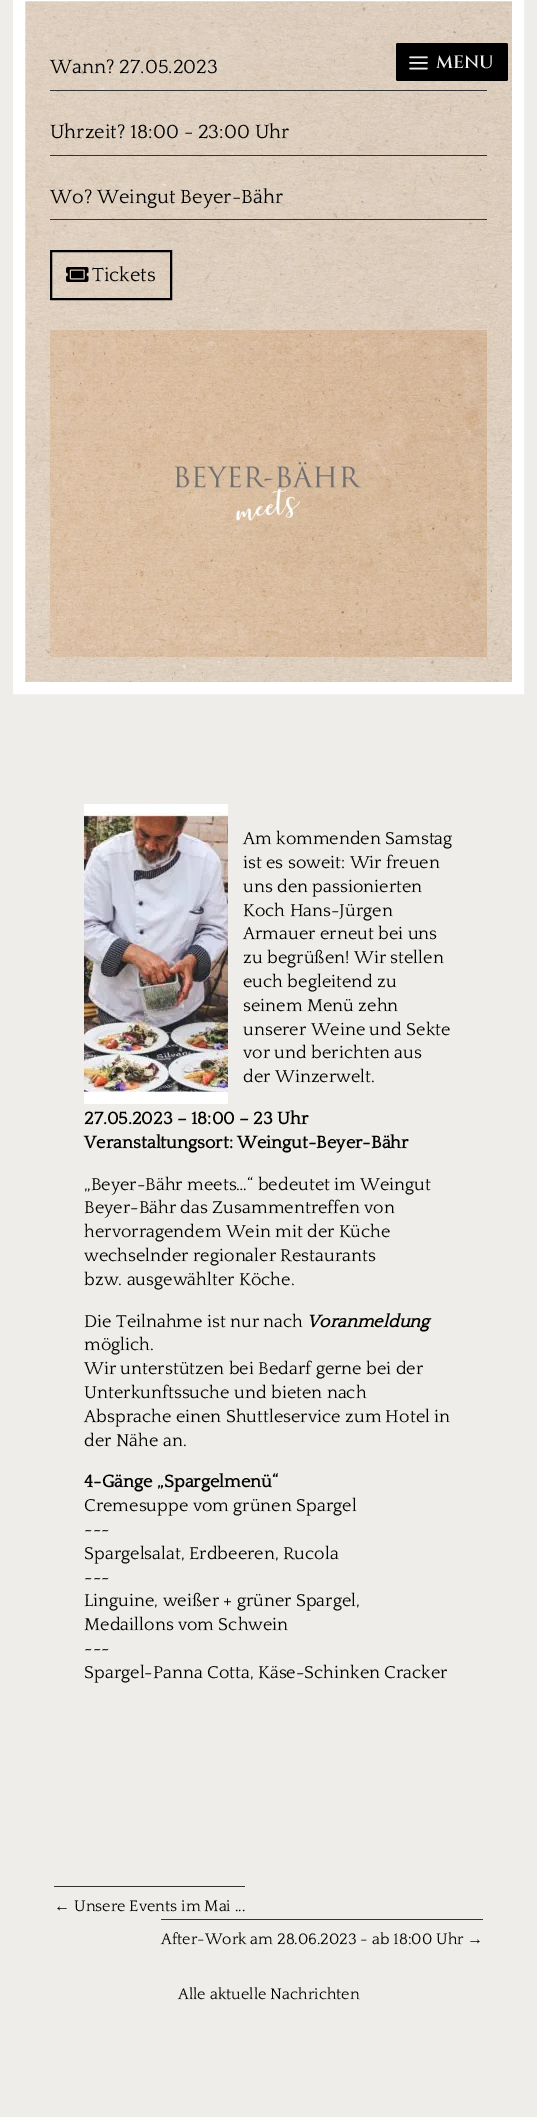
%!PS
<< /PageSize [537 2117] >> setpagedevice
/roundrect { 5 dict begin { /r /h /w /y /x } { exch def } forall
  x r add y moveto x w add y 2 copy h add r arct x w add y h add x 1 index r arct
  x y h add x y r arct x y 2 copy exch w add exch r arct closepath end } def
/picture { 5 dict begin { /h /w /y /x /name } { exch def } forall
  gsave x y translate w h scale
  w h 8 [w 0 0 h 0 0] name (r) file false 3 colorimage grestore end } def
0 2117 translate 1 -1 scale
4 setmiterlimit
0.937 0.929 0.918 setrgbcolor
0 0 537 2117 rectfill
(img2.rgb) 25 1 487 681 picture
1 setgray
12 setlinewidth
19 -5 499 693 rectstroke
0 setgray
396 43 112 38 2 roundrect fill
(img1.rgb) 409 56 19 14 picture
/Cinzel-SemiBold [18 0 0 -18 0 0] selectfont
0.937 0.929 0.918 setrgbcolor
436 68 moveto (MENU) show
0.2 setgray
50 90 437 1 rectfill
/Quattrocento-Regular [20 0 0 -20 0 0] selectfont
0 setgray
50 73 moveto (Wann? 27.05.2023) show
0.2 setgray
50 155 437 1 rectfill
0 setgray
50 138 moveto (Uhrzeit? 18:00 - 23:00 Uhr) show
0.2 setgray
50 219 437 1 rectfill
0 setgray
50 203 moveto (Wo? Weingut Beyer-Bähr) show
2 setlinewidth
51 251 120 48 rectstroke
(img3.rgb) 66 267 23 15 picture
92 281 moveto (Tickets) show
(img4.rgb) 50 330 437 327 picture
(img5.rgb) 84 804 144 300 picture
/Quattrocento-Regular [18 0 0 -18 0 0] selectfont
243 844 moveto (Am kommenden Samstag) show
243 868 moveto (ist es soweit: Wir freuen) show
243 892 moveto (uns den passionierten) show
243 916 moveto (Koch Hans-Jürgen) show
243 939 moveto (Armauer erneut bei uns) show
243 963 moveto (zu begrüßen! Wir stellen) show
243 987 moveto (euch begleitend zu) show
243 1011 moveto (seinem Menü zehn) show
243 1035 moveto (unserer Weine und Sekte) show
243 1058 moveto (vor und berichten aus) show
243 1082 moveto (der Winzerwelt.) show
/Quattrocento-Bold [18 0 0 -18 0 0] selectfont
84 1124 moveto (27.05.2023 – 18:00 – 23 Uhr) show
84 1148 moveto (Veranstaltungsort: Weingut-Beyer-Bähr) show
/Quattrocento-Regular [18 0 0 -18 0 0] selectfont
84 1190 moveto („Beyer-Bähr meets…“ bedeutet im Weingut) show
84 1213 moveto (Beyer-Bähr das Zusammentreffen von) show
84 1237 moveto (hervorragendem Wein mit der Küche) show
84 1261 moveto (wechselnder regionaler Restaurants) show
84 1285 moveto (bzw. ausgewählter Köche.) show
84 1327 moveto (Die Teilnahme ist nur nach) show
/Quattrocento-BoldItalic [18 0 0 -18 0 0] selectfont
307 1327 moveto (Voranmeldung) show
/Quattrocento-Regular [18 0 0 -18 0 0] selectfont
84 1350 moveto (möglich.) show
84 1374 moveto (Wir unterstützen bei Bedarf gerne bei der) show
84 1398 moveto (Unterkunftssuche und bieten nach) show
84 1422 moveto (Absprache einen Shuttleservice zum Hotel in) show
84 1446 moveto (der Nähe an.) show
/Quattrocento-Bold [18 0 0 -18 0 0] selectfont
84 1487 moveto (4-Gänge „Spargelmenü“) show
/Quattrocento-Regular [18 0 0 -18 0 0] selectfont
84 1511 moveto (Cremesuppe vom grünen Spargel) show
84 1535 moveto (~~~) show
84 1559 moveto (Spargelsalat, Erdbeeren, Rucola) show
84 1583 moveto (~~~) show
84 1606 moveto (Linguine, weißer + grüner Spargel,) show
84 1630 moveto (Medaillons vom Schwein) show
84 1654 moveto (~~~) show
84 1678 moveto (Spargel-Panna Cotta, Käse-Schinken Cracker) show
0.2 setgray
54 1886 191 1 rectfill
/LiberationSans-Regular [16 0 0 -16 0 0] selectfont
0 setgray
54 1911 moveto (←) show
/Quattrocento-Regular [16 0 0 -16 0 0] selectfont
74 1911 moveto (Unsere Events im Mai ...) show
0.2 setgray
161 1919 322 1 rectfill
0 setgray
161 1944 moveto (After-Work am 28.06.2023 - ab 18:00 Uhr) show
/LiberationSans-Regular [16 0 0 -16 0 0] selectfont
467 1944 moveto (→) show
/Quattrocento-Regular [16 0 0 -16 0 0] selectfont
178 1999 moveto (Alle aktuelle Nachrichten) show
showpage
